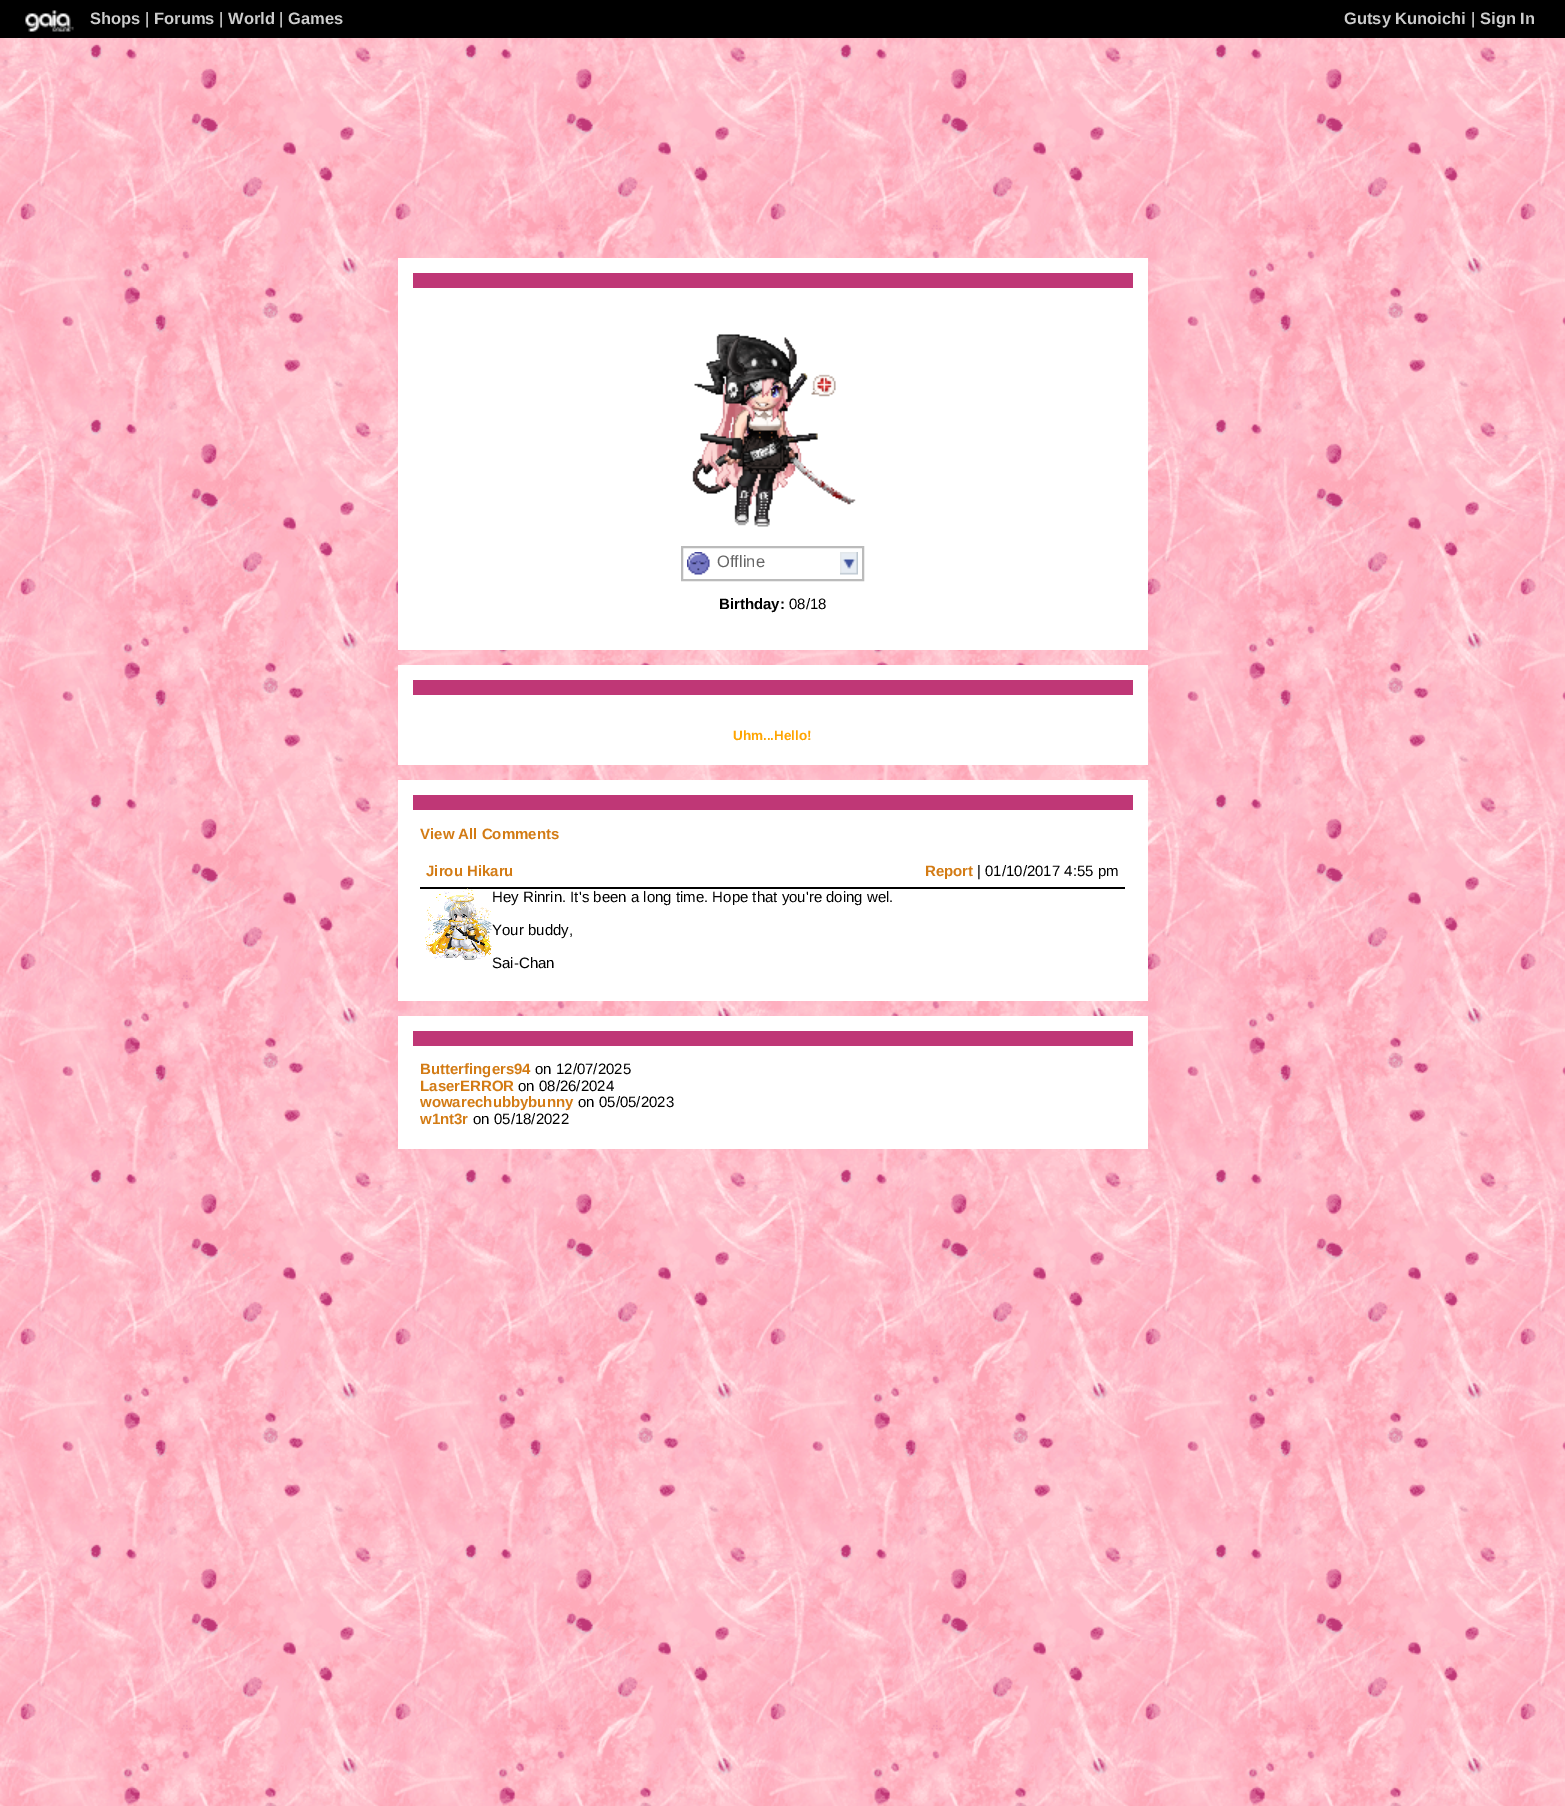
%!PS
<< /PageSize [1565 1806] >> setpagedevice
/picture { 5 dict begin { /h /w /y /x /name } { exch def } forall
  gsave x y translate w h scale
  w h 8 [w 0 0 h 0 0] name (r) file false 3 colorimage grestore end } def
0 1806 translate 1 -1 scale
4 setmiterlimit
1 setgray
0 0 1565 1806 rectfill
(img1.rgb) 0 38 1565 1768 picture
0 setgray
0 0 1565 38 rectfill
(img2.rgb) 25 10 49 22 picture
/LiberationSans-Bold [16.5 0 0 -16.5 0 0] selectfont
0.8 setgray
90 24 moveto (Shops) show
/LiberationSans-Regular [16.5 0 0 -16.5 0 0] selectfont
1 setgray
145 24 moveto (|) show
/LiberationSans-Bold [16.5 0 0 -16.5 0 0] selectfont
0.8 setgray
154 24 moveto (Forums) show
/LiberationSans-Regular [16.5 0 0 -16.5 0 0] selectfont
1 setgray
219 24 moveto (|) show
/LiberationSans-Bold [16.5 0 0 -16.5 0 0] selectfont
0.8 setgray
228 24 moveto (World) show
/LiberationSans-Regular [16.5 0 0 -16.5 0 0] selectfont
1 setgray
279 24 moveto (|) show
/LiberationSans-Bold [16.5 0 0 -16.5 0 0] selectfont
0.8 setgray
288 24 moveto (Games) show
1344 24 moveto (Gutsy Kunoichi) show
/LiberationSans-Regular [16.5 0 0 -16.5 0 0] selectfont
1 setgray
1471 24 moveto (|) show
/LiberationSans-Bold [16.5 0 0 -16.5 0 0] selectfont
0.8 setgray
1480 24 moveto (Sign In) show
1 setgray
398 258 750 392 rectfill
0.749 0.216 0.463 setrgbcolor
413 273 720 15 rectfill
(img3.rgb) 692 334 164 193 picture
0.733 setgray
2 setlinewidth
682 547 181 33 rectstroke
(img4.rgb) 840 552 18 23 picture
(img5.rgb) 687 552 23 23 picture
/LiberationSans-Regular [16.5 0 0 -16.5 0 0] selectfont
0.4 setgray
717 567 moveto (Offline) show
/LiberationSans-Bold [15 0 0 -15 0 0] selectfont
0 setgray
719 609 moveto (Birthday:) show
/LiberationSans-Regular [15 0 0 -15 0 0] selectfont
789 609 moveto (08/18) show
1 setgray
398 665 750 100 rectfill
0.749 0.216 0.463 setrgbcolor
413 680 720 15 rectfill
/LiberationSans-Bold [13.5 0 0 -13.5 0 0] selectfont
1 0.647 0 setrgbcolor
733 740 moveto (Uhm...Hello!) show
1 setgray
398 780 750 221 rectfill
0.749 0.216 0.463 setrgbcolor
413 795 720 15 rectfill
/LiberationSans-Bold [15 0 0 -15 0 0] selectfont
0.827 0.482 0.078 setrgbcolor
420 839 moveto (View All Comments) show
0 setgray
420 887 705 2 rectfill
0.827 0.482 0.078 setrgbcolor
426 876 moveto (Jirou Hikaru) show
925 876 moveto (Report) show
/LiberationSans-Regular [15 0 0 -15 0 0] selectfont
0 setgray
977 876 moveto (| 01/10/2017 4:55 pm) show
(img6.rgb) 425 888 67 72 picture
492 902 moveto (Hey Rinrin. It's been a long time. Hope that you're doing wel.) show
492 935 moveto (Your buddy,) show
492 968 moveto (Sai-Chan) show
1 setgray
398 1016 750 133 rectfill
0.749 0.216 0.463 setrgbcolor
413 1031 720 15 rectfill
/LiberationSans-Bold [15 0 0 -15 0 0] selectfont
0.827 0.482 0.078 setrgbcolor
420 1074 moveto (Butterfingers94) show
/LiberationSans-Regular [15 0 0 -15 0 0] selectfont
0 setgray
535 1074 moveto (on 12/07/2025) show
/LiberationSans-Bold [15 0 0 -15 0 0] selectfont
0.827 0.482 0.078 setrgbcolor
420 1091 moveto (LaserERROR) show
/LiberationSans-Regular [15 0 0 -15 0 0] selectfont
0 setgray
518 1091 moveto (on 08/26/2024) show
/LiberationSans-Bold [15 0 0 -15 0 0] selectfont
0.827 0.482 0.078 setrgbcolor
420 1107 moveto (wowarechubbybunny) show
/LiberationSans-Regular [15 0 0 -15 0 0] selectfont
0 setgray
578 1107 moveto (on 05/05/2023) show
/LiberationSans-Bold [15 0 0 -15 0 0] selectfont
0.827 0.482 0.078 setrgbcolor
420 1124 moveto (w1nt3r) show
/LiberationSans-Regular [15 0 0 -15 0 0] selectfont
0 setgray
473 1124 moveto (on 05/18/2022) show
showpage
